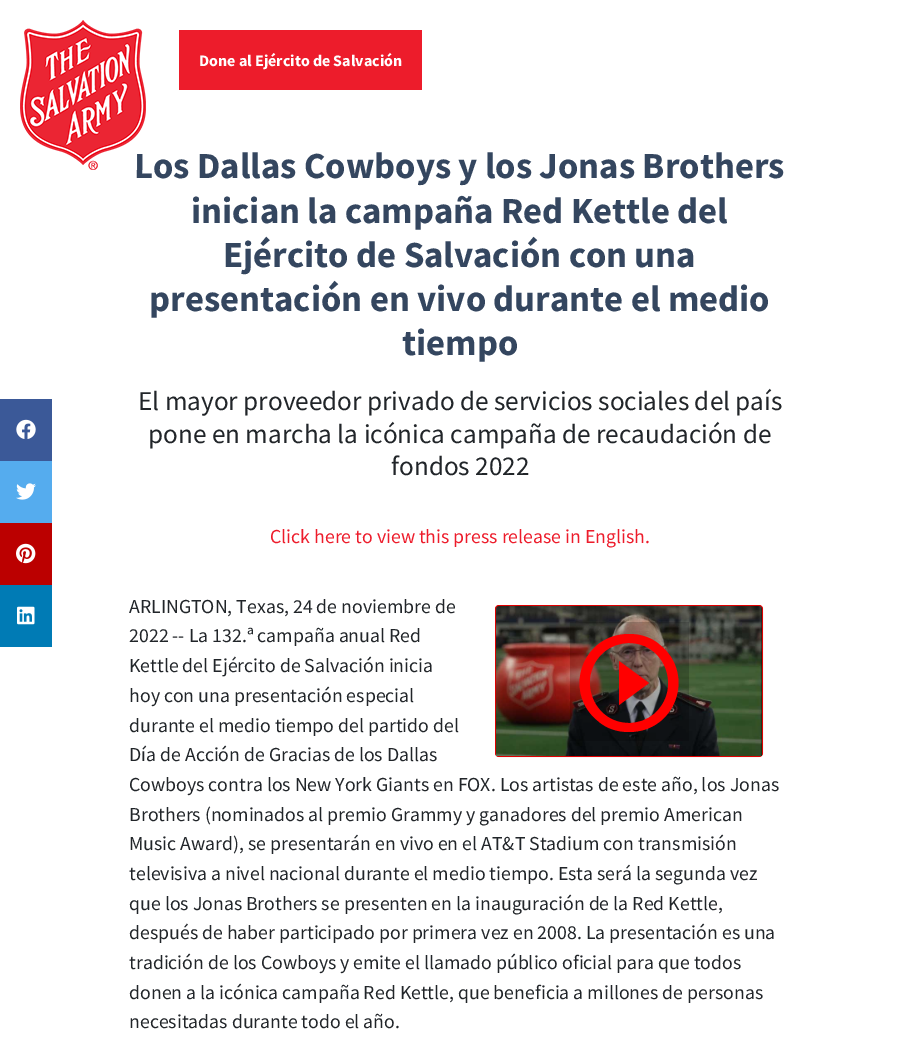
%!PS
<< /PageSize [920 1045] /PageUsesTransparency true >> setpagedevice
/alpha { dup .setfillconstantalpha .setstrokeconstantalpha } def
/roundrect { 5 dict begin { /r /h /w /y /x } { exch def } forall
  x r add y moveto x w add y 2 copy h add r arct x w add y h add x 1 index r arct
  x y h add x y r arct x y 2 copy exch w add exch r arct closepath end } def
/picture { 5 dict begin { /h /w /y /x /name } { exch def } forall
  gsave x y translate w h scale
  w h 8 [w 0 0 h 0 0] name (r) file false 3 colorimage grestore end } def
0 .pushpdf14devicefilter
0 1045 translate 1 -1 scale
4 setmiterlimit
1 setgray
0 0 920 1045 rectfill
/SourceSansPro-Bold [36.75 0 0 -36.75 0 0] selectfont
0.204 0.275 0.373 setrgbcolor
134 178 moveto (Los Dallas Cowboys y los Jonas Brothers) show
(img1.rgb) 20 20 126 150 picture
0.929 0.11 0.169 setrgbcolor
179 30 243 60 rectfill
/SourceSansPro-Bold [16 0 0 -16 0 0] selectfont
1 setgray
199 66 moveto (Done al Ejército de Salvación) show
0.231 0.349 0.596 setrgbcolor
0 399 52 62 rectfill
(img2.rgb) 16 419 20 20 picture
0.333 0.675 0.933 setrgbcolor
0 461 52 62 rectfill
(img3.rgb) 16 483 20 17 picture
0.733 0 0 setrgbcolor
0 523 52 62 rectfill
(img4.rgb) 16 543 20 21 picture
0 0.482 0.71 setrgbcolor
0 585 52 62 rectfill
(img5.rgb) 17 606 18 19 picture
/SourceSansPro-Bold [36.75 0 0 -36.75 0 0] selectfont
0.204 0.275 0.373 setrgbcolor
191 223 moveto (inician la campaña Red Kettle del) show
223 267 moveto (Ejército de Salvación con una) show
149 311 moveto (presentación en vivo durante el medio) show
402 355 moveto (tiempo) show
/SourceSansPro-Regular [27.2 0 0 -27.2 0 0] selectfont
0.129 0.145 0.161 setrgbcolor
138 410 moveto (El mayor proveedor privado de servicios sociales del país) show
148 443 moveto (pone en marcha la icónica campaña de recaudación de) show
391 475 moveto (fondos 2022) show
/SourceSansPro-Regular [19.8 0 0 -19.8 0 0] selectfont
0.929 0.11 0.169 setrgbcolor
270 543 moveto (Click here to view this press release in English.) show
0.129 0.145 0.161 setrgbcolor
129 613 moveto (ARLINGTON, Texas, 24 de noviembre de) show
129 642 moveto (2022 -- La 132.ª campaña anual Red) show
129 672 moveto (Kettle del Ejército de Salvación inicia) show
129 702 moveto (hoy con una presentación especial) show
129 732 moveto (durante el medio tiempo del partido del) show
129 761 moveto (Día de Acción de Gracias de los Dallas) show
129 791 moveto (Cowboys contra los New York Giants en FOX. Los artistas de este año, los Jonas) show
129 821 moveto (Brothers \(nominados al premio Grammy y ganadores del premio American) show
129 850 moveto (Music Award\), se presentarán en vivo en el AT&T Stadium con transmisión) show
129 880 moveto (televisiva a nivel nacional durante el medio tiempo. Esta será la segunda vez) show
129 910 moveto (que los Jonas Brothers se presenten en la inauguración de la Red Kettle,) show
129 939 moveto (después de haber participado por primera vez en 2008. La presentación es una) show
129 969 moveto (tradición de los Cowboys y emite el llamado público oficial para que todos) show
129 999 moveto (donen a la icónica campaña Red Kettle, que beneficia a millones de personas) show
129 1028 moveto (necesitadas durante todo el año.) show
1 0 0 setrgbcolor
495 605 268 152 4 roundrect fill
0.12 alpha
0 setgray
495.5 605.5 267 151 3.5 roundrect stroke
1 alpha
(img6.rgb) 496 606 266 150 picture
0.2 alpha
570 622 119 119 rectfill
1 alpha
1 0 0 setrgbcolor
newpath 629 723 moveto 638 723 647 720 654 714 curveto 682 690 666 643 629 643 curveto 620 643 611 646 604 652 curveto 576 676 592 723 629 723 curveto closepath 629 634 moveto 640 634 651 637 660 645 curveto 696 674 676 732 629 732 curveto 618 732 607 729 598 721 curveto 562 692 582 634 629 634 curveto closepath 619 705 moveto 619 661 lineto 649 683 lineto closepath fill
.poppdf14devicefilter showpage
